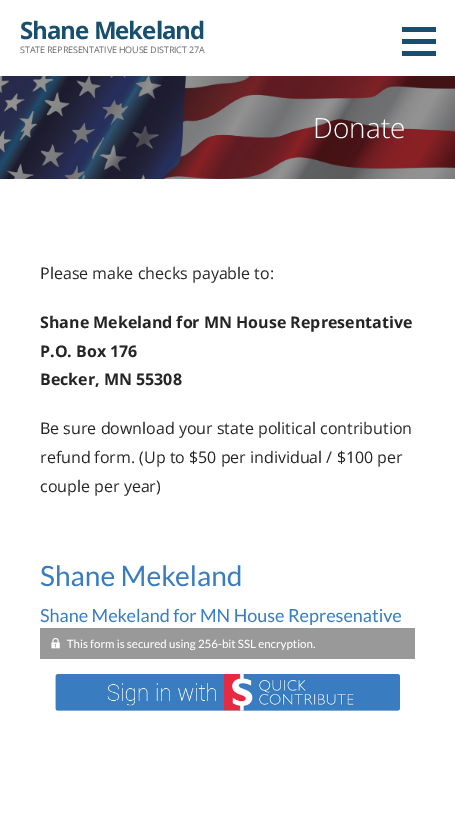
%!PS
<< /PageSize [455 817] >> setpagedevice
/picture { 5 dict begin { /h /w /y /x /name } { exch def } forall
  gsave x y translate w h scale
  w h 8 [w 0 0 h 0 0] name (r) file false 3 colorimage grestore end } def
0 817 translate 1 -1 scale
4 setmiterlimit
1 setgray
0 0 455 817 rectfill
/OpenSans-Bold [24 0 0 -24 0 0] selectfont
0.098 0.31 0.431 setrgbcolor
20 39 moveto -1 0 (Shane Mekeland) ashow
/OpenSans-Regular [9 0 0 -9 0 0] selectfont
0.408 setgray
20 53 moveto -0.15 0 (STATE REPRESENTATIVE HOUSE DISTRICT 27A) ashow
0.098 0.31 0.431 setrgbcolor
402 27 34 5 rectfill
402 39 34 5 rectfill
402 51 34 5 rectfill
(img1.rgb) 0 76 455 103 picture
/OpenSans-Light [28 0 0 -28 0 0] selectfont
1 setgray
313 138 moveto (Donate) show
/OpenSans-Regular [16 0 0 -16 0 0] selectfont
0.145 setgray
40 279 moveto (Please make checks payable to:) show
/OpenSans-Bold [16 0 0 -16 0 0] selectfont
40 328 moveto (Shane Mekeland for MN House Representative) show
40 357 moveto (P.O. Box 176) show
40 385 moveto (Becker, MN 55308) show
/OpenSans-Regular [16 0 0 -16 0 0] selectfont
40 434 moveto (Be sure download your state political contribution) show
40 463 moveto (refund form. \(Up to $50 per individual / $100 per) show
40 492 moveto (couple per year\)) show
(img2.rgb) 40 565 375 146 picture
showpage
